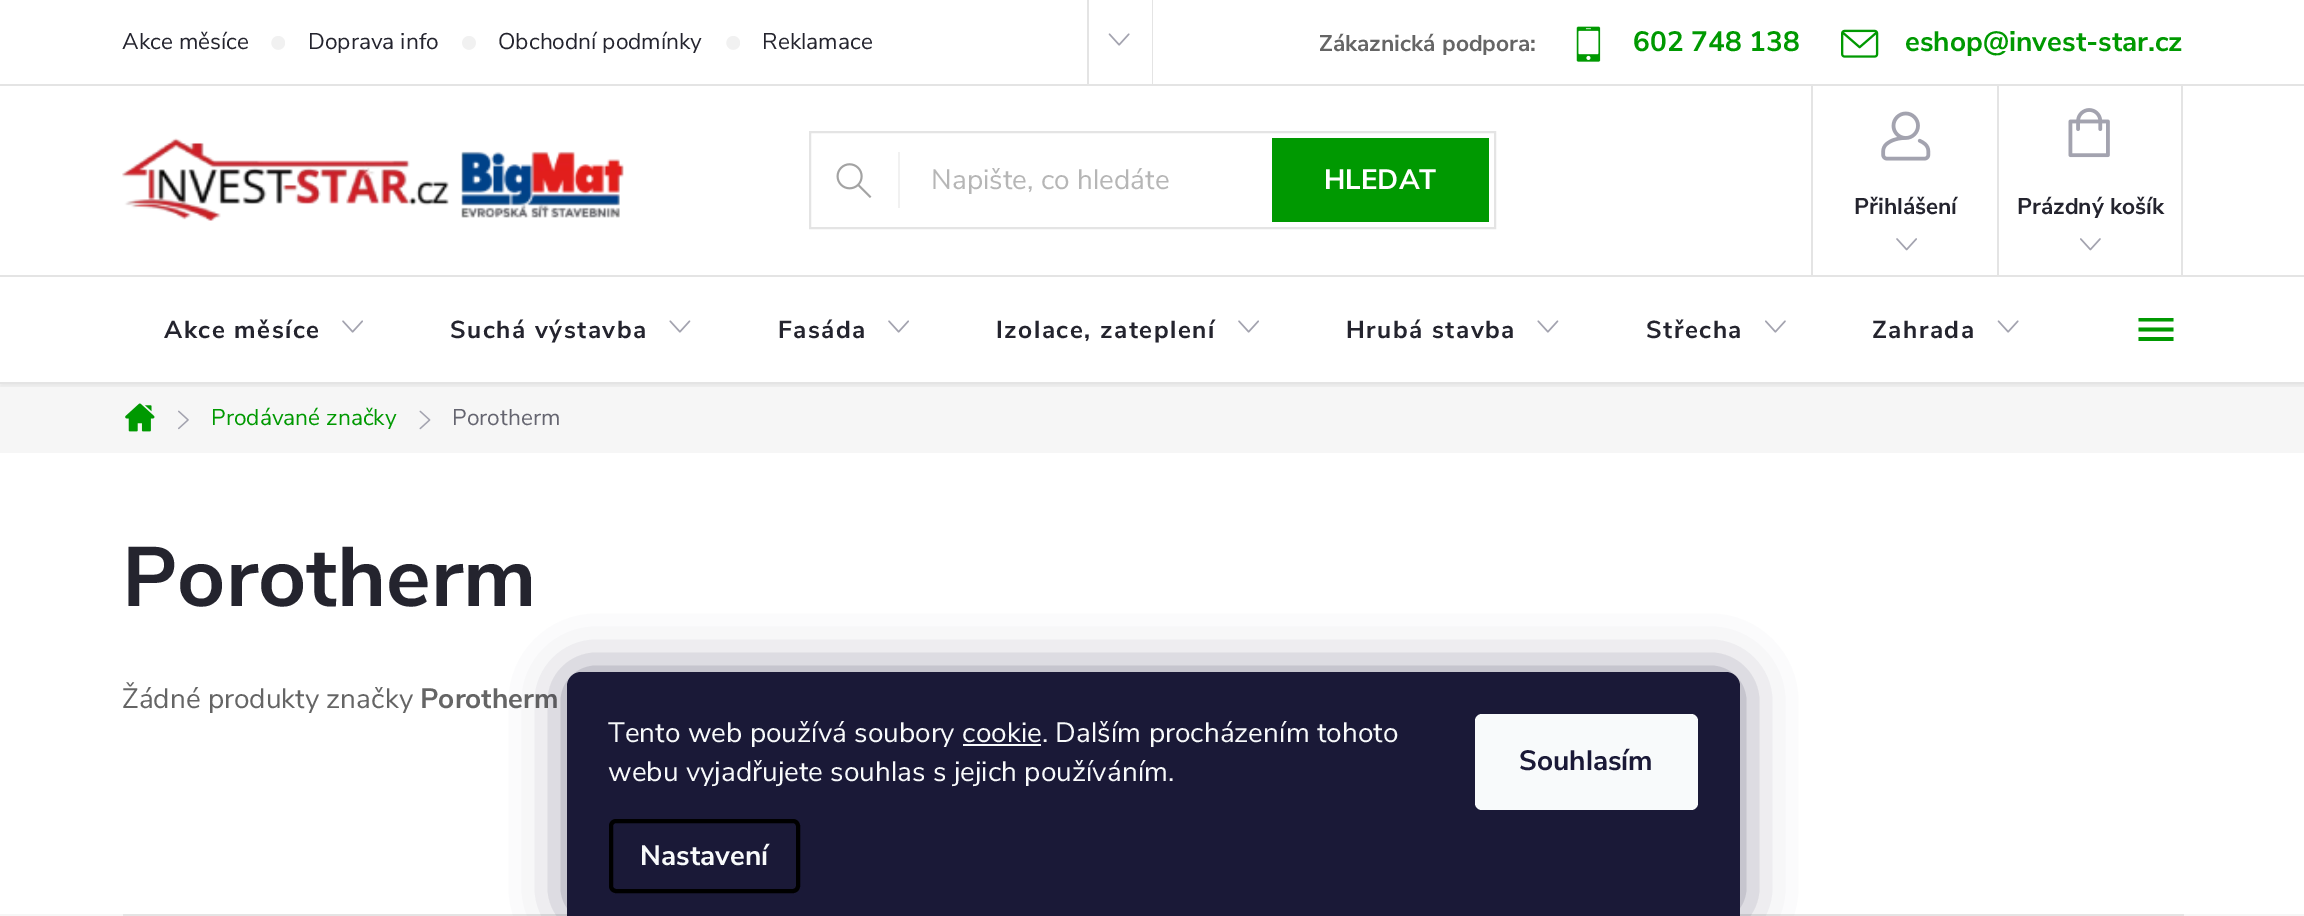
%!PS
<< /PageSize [2304 916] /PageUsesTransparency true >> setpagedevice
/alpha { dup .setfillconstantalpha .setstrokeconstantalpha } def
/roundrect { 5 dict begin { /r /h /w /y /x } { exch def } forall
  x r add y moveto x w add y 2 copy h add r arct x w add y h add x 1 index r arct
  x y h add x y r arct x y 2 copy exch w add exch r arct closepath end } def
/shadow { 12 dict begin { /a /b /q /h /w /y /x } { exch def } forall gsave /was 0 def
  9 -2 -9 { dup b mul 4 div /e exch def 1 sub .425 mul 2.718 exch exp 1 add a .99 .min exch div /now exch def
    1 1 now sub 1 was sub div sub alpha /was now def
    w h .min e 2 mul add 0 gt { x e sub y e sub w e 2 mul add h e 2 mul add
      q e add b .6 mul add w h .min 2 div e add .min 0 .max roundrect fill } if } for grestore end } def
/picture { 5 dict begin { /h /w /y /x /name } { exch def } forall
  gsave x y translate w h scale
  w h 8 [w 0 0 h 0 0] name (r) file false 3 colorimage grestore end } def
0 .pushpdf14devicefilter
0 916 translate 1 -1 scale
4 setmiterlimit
1 setgray
0 0 2304 916 rectfill
0.894 setgray
0 84 2304 2 rectfill
/NunitoSans-Regular [22.75 0 0 -22.75 0 0] selectfont
0.141 0.141 0.18 setrgbcolor
122 49 moveto (Akce měsíce) show
(img1.rgb) 271 36 14 14 picture
308 49 moveto (Doprava info) show
(img2.rgb) 462 36 14 14 picture
498 49 moveto (Obchodní podmínky) show
(img1.rgb) 726 36 14 14 picture
762 49 moveto (Reklamace) show
0.894 setgray
1152 0 1 84 rectfill
1087 0 2 84 rectfill
(img3.rgb) 1108 33 22 13 picture
/NunitoSans-Bold [22.75 0 0 -22.75 0 0] selectfont
0.396 setgray
1319 51 moveto (Zákaznická podpora:) show
(img4.rgb) 1576 26 25 36 picture
/NunitoSans-Bold [28 0 0 -28 0 0] selectfont
0 0.6 0.004 setrgbcolor
1633 51 moveto (602 748 138) show
(img5.rgb) 1841 29 38 29 picture
1905 51 moveto (eshop@invest-star.cz) show
(img6.rgb) 122 138 502 83 picture
0.894 setgray
2 setlinewidth
810 132 685 96 rectstroke
0.945 setgray
898 152 2 56 rectfill
(img7.rgb) 836 163 36 35 picture
/NunitoSans-Regular [28 0 0 -28 0 0] selectfont
0.714 setgray
931 189 moveto (Napište, co hledáte) show
0 0.6 0.004 setrgbcolor
1272 138 217 84 rectfill
/NunitoSans-Bold [28 0 0 -28 0 0] selectfont
1 setgray
1324 189 moveto (HLEDAT) show
0.894 setgray
1811 86 2 189 rectfill
(img8.rgb) 1881 111 50 50 picture
/NunitoSans-Bold [22.75 0 0 -22.75 0 0] selectfont
0.141 0.141 0.18 setrgbcolor
1854 214 moveto (Přihlášení) show
(img9.rgb) 1896 238 21 13 picture
0.894 setgray
2181 86 2 189 rectfill
1997 86 2 189 rectfill
(img10.rgb) 2068 108 42 50 picture
0.141 0.141 0.18 setrgbcolor
2017 214 moveto (Prázdný košík) show
(img11.rgb) 2080 238 21 13 picture
0.965 setgray
0 384 2304 69 rectfill
gsave
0 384 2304 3 rectclip
0 setgray
0 278 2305 109 0 2 0.05 shadow
grestore
/NunitoSans-Bold [24.5 0 0 -24.5 0 0] selectfont
0.141 0.141 0.18 setrgbcolor
164 338 moveto 1.5 0 (Akce měsíce) ashow
(img12.rgb) 342 320 21 13 picture
450 338 moveto 1.5 0 (Suchá výstavba) ashow
(img13.rgb) 669 320 22 13 picture
778 338 moveto 1.5 0 (Fasáda) ashow
(img12.rgb) 888 320 21 13 picture
996 338 moveto 1.5 0 (Izolace, zateplení) ashow
(img12.rgb) 1238 320 21 13 picture
1346 338 moveto 1.5 0 (Hrubá stavba) ashow
(img13.rgb) 1537 320 22 13 picture
1646 338 moveto 1.5 0 (Střecha) ashow
(img14.rgb) 1765 320 21 13 picture
1872 338 moveto 1.5 0 (Zahrada) ashow
(img3.rgb) 1997 320 22 13 picture
0 0.6 0.004 setrgbcolor
newpath 2138.5 341 moveto 2173.5 341 lineto 2173.5 337 lineto 2138.5 337 lineto closepath 2138.5 331.5 moveto 2173.5 331.5 lineto 2173.5 327.5 lineto 2138.5 327.5 lineto closepath 2138.5 318 moveto 2138.5 321.5 lineto 2173.5 321.5 lineto 2173.5 318 lineto closepath fill
0.894 setgray
0 275 2304 2 rectfill
0 382 2304 2 rectfill
(img15.rgb) 125 403 30 29 picture
(img16.rgb) 178 410 11 20 picture
/NunitoSans-Regular [22.75 0 0 -22.75 0 0] selectfont
0 0.6 0.004 setrgbcolor
211 425 moveto (Prodávané značky) show
(img17.rgb) 419 410 12 20 picture
0.396 0.396 0.439 setrgbcolor
452 425 moveto (Porotherm) show
/NunitoSans-Bold [84 0 0 -84 0 0] selectfont
0.141 0.141 0.18 setrgbcolor
122 606 moveto (Porotherm) show
/NunitoSans-Regular [28 0 0 -28 0 0] selectfont
0.396 setgray
122 708 moveto (Žádné produkty značky) show
/NunitoSans-Bold [28 0 0 -28 0 0] selectfont
420 708 moveto (Porotherm) show
0.965 setgray
0 914 2304 2 rectfill
0.894 setgray
123 914 2061 2 rectfill
0.106 0.098 0.224 setrgbcolor
567 672 1173 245 14 26 0.5 shadow
0.102 0.098 0.216 setrgbcolor
newpath 581 672 moveto 1726 672 lineto 1733.5 672 1740 678.5 1740 686 curveto 1740 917 lineto 567 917 lineto 567 686 lineto 567 678.5 573.5 672 581 672 curveto closepath fill
/NunitoSans-Regular [28 0 0 -28 0 0] selectfont
0.973 0.98 0.984 setrgbcolor
608 742 moveto (Tento web používá soubory cookie. Dalším procházením tohoto) show
963 744 78 2 rectfill
608 781 moveto (webu vyjadřujete souhlas s jejich používáním.) show
0 setgray
4 setlinewidth
611 821 187 70 5 roundrect stroke
/NunitoSans-Bold [28 0 0 -28 0 0] selectfont
0.973 0.98 0.984 setrgbcolor
640 865 moveto (Nastavení) show
1475 714 223 96 7 roundrect fill
0.102 0.098 0.216 setrgbcolor
1519 770 moveto (Souhlasím) show
.poppdf14devicefilter showpage
